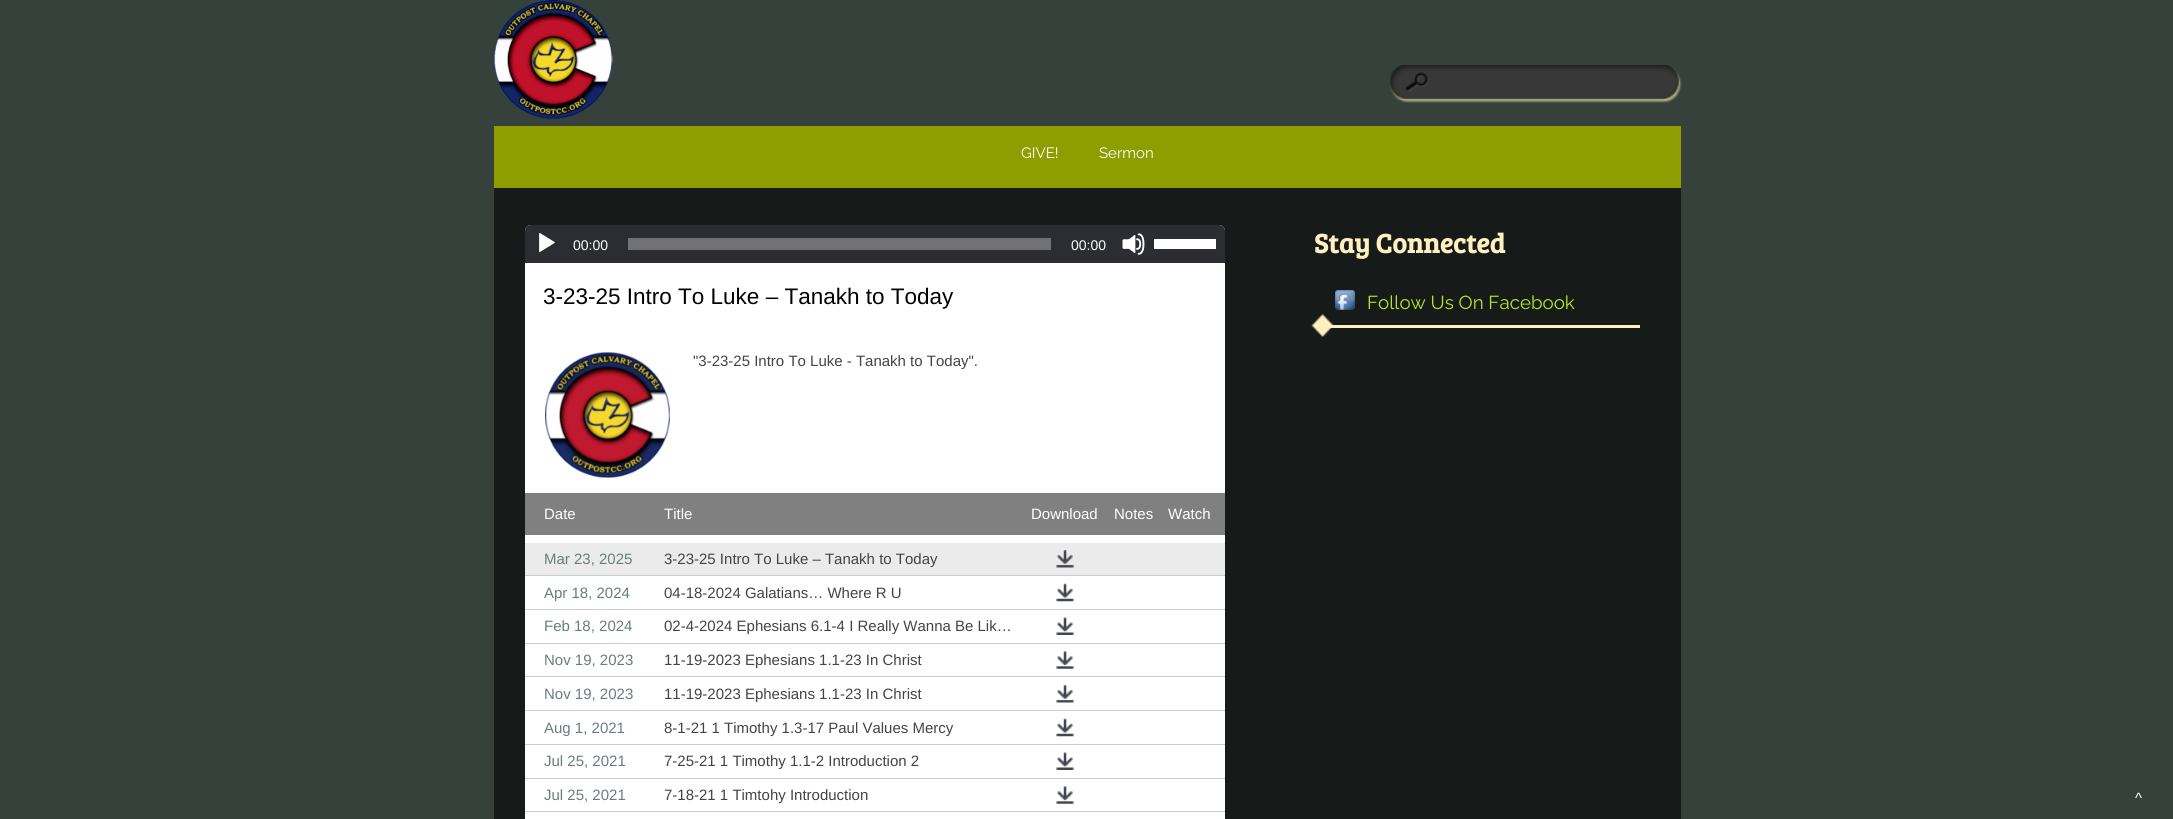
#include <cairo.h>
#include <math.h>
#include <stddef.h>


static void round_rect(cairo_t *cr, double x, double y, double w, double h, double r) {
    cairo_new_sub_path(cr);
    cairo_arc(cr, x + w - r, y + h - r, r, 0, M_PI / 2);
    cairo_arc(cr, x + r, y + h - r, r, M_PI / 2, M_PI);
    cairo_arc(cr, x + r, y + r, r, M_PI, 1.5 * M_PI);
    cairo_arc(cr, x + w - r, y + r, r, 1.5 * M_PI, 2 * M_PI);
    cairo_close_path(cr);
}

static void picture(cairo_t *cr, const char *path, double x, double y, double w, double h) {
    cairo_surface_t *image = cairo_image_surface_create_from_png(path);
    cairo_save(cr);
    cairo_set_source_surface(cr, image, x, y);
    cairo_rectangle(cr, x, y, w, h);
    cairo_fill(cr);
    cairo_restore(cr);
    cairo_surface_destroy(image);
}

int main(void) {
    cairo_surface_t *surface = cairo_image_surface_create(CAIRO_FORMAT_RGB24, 2173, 819);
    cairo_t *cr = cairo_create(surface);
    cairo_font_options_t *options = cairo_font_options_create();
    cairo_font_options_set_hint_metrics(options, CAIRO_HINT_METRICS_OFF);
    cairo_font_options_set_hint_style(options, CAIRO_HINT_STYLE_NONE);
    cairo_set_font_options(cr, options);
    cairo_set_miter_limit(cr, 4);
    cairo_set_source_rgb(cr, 0.208, 0.255, 0.227);
    cairo_paint(cr);
    picture(cr, "img1.png", 493, 0, 120, 119);
    picture(cr, "img2.png", 1390, 65, 292, 38);
    cairo_set_source_rgb(cr, 0.557, 0.62, 0);
    cairo_rectangle(cr, 494, 126, 1187, 62);
    cairo_fill(cr);
    cairo_select_font_face(cr, "Raleway", CAIRO_FONT_SLANT_NORMAL, CAIRO_FONT_WEIGHT_NORMAL);
    cairo_set_font_size(cr, 15);
    cairo_set_source_rgb(cr, 1, 1, 1);
    cairo_move_to(cr, 1021, 158);
    cairo_show_text(cr, "GIVE!");
    cairo_move_to(cr, 1099, 158);
    cairo_show_text(cr, "Sermon");
    cairo_set_source_rgb(cr, 0.086, 0.106, 0.098);
    cairo_rectangle(cr, 494, 188, 1187, 631);
    cairo_fill(cr);
    cairo_set_source_rgb(cr, 1, 1, 1);
    round_rect(cr, 525, 225, 700, 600, 6);
    cairo_fill(cr);
    cairo_set_source_rgb(cr, 0.173, 0.176, 0.2);
    cairo_new_path(cr);
    cairo_move_to(cr, 531, 225);
    cairo_line_to(cr, 1219, 225);
    cairo_curve_to(cr, 1222.5, 225, 1225, 227.5, 1225, 231);
    cairo_line_to(cr, 1225, 263);
    cairo_line_to(cr, 525, 263);
    cairo_line_to(cr, 525, 231);
    cairo_curve_to(cr, 525, 227.5, 527.5, 225, 531, 225);
    cairo_close_path(cr);
    cairo_fill(cr);
    picture(cr, "img3.png", 539, 233, 16, 19);
    cairo_select_font_face(cr, "Liberation Sans", CAIRO_FONT_SLANT_NORMAL, CAIRO_FONT_WEIGHT_NORMAL);
    cairo_set_font_size(cr, 14);
    cairo_set_source_rgb(cr, 1, 1, 1);
    cairo_move_to(cr, 573, 250);
    cairo_show_text(cr, "00:00");
    cairo_set_source_rgb(cr, 0.447, 0.447, 0.463);
    cairo_rectangle(cr, 628, 238, 423, 12);
    cairo_fill(cr);
    cairo_set_source_rgb(cr, 1, 1, 1);
    cairo_move_to(cr, 1071, 250);
    cairo_show_text(cr, "00:00");
    picture(cr, "img4.png", 1122, 233, 23, 22);
    cairo_rectangle(cr, 1154, 239, 62, 10);
    cairo_fill(cr);
    cairo_set_font_size(cr, 22.5);
    cairo_set_source_rgb(cr, 0, 0, 0);
    cairo_move_to(cr, 543, 304);
    cairo_show_text(cr, "3-23-25 Intro To Luke – Tanakh to Today");
    picture(cr, "img5.png", 545, 352, 125, 126);
    cairo_set_font_size(cr, 15);
    cairo_set_source_rgb(cr, 0.267, 0.267, 0.267);
    cairo_move_to(cr, 693, 366);
    cairo_show_text(cr, "\"3-23-25 Intro To Luke - Tanakh to Today\".");
    cairo_set_source_rgb(cr, 0.502, 0.502, 0.502);
    cairo_rectangle(cr, 525, 493, 700, 42);
    cairo_fill(cr);
    cairo_set_source_rgb(cr, 1, 1, 1);
    cairo_move_to(cr, 544, 519);
    cairo_show_text(cr, "Date");
    cairo_move_to(cr, 664, 519);
    cairo_show_text(cr, "Title");
    cairo_move_to(cr, 1031, 519);
    cairo_show_text(cr, "Download");
    cairo_move_to(cr, 1114, 519);
    cairo_show_text(cr, "Notes");
    cairo_move_to(cr, 1168, 519);
    cairo_show_text(cr, "Watch");
    cairo_set_source_rgb(cr, 0.918, 0.918, 0.918);
    cairo_rectangle(cr, 525, 543, 700, 32);
    cairo_fill(cr);
    cairo_set_source_rgb(cr, 0.408, 0.494, 0.486);
    cairo_move_to(cr, 544, 564);
    cairo_show_text(cr, "Mar 23, 2025");
    cairo_set_source_rgb(cr, 0.267, 0.267, 0.267);
    cairo_move_to(cr, 664, 564);
    cairo_show_text(cr, "3-23-25 Intro To Luke – Tanakh to Today");
    picture(cr, "img6.png", 1056, 549, 18, 19);
    cairo_set_source_rgb(cr, 0.8, 0.8, 0.8);
    cairo_rectangle(cr, 525, 575, 700, 1);
    cairo_fill(cr);
    cairo_set_source_rgb(cr, 0.408, 0.494, 0.486);
    cairo_move_to(cr, 544, 598);
    cairo_show_text(cr, "Apr 18, 2024");
    cairo_set_source_rgb(cr, 0.267, 0.267, 0.267);
    cairo_move_to(cr, 664, 598);
    cairo_show_text(cr, "04-18-2024 Galatians… Where R U");
    picture(cr, "img7.png", 1056, 583, 18, 19);
    cairo_set_source_rgb(cr, 0.8, 0.8, 0.8);
    cairo_rectangle(cr, 525, 609, 700, 1);
    cairo_fill(cr);
    cairo_set_source_rgb(cr, 0.408, 0.494, 0.486);
    cairo_move_to(cr, 544, 631);
    cairo_show_text(cr, "Feb 18, 2024");
    cairo_set_source_rgb(cr, 0.267, 0.267, 0.267);
    cairo_move_to(cr, 664, 631);
    cairo_show_text(cr, "02-4-2024 Ephesians 6.1-4 I Really Wanna Be Lik…");
    picture(cr, "img8.png", 1056, 617, 18, 18);
    cairo_set_source_rgb(cr, 0.8, 0.8, 0.8);
    cairo_rectangle(cr, 525, 643, 700, 1);
    cairo_fill(cr);
    cairo_set_source_rgb(cr, 0.408, 0.494, 0.486);
    cairo_move_to(cr, 544, 665);
    cairo_show_text(cr, "Nov 19, 2023");
    cairo_set_source_rgb(cr, 0.267, 0.267, 0.267);
    cairo_move_to(cr, 664, 665);
    cairo_show_text(cr, "11-19-2023 Ephesians 1.1-23 In Christ");
    picture(cr, "img9.png", 1056, 651, 18, 18);
    cairo_set_source_rgb(cr, 0.8, 0.8, 0.8);
    cairo_rectangle(cr, 525, 676, 700, 1);
    cairo_fill(cr);
    cairo_set_source_rgb(cr, 0.408, 0.494, 0.486);
    cairo_move_to(cr, 544, 699);
    cairo_show_text(cr, "Nov 19, 2023");
    cairo_set_source_rgb(cr, 0.267, 0.267, 0.267);
    cairo_move_to(cr, 664, 699);
    cairo_show_text(cr, "11-19-2023 Ephesians 1.1-23 In Christ");
    picture(cr, "img10.png", 1056, 684, 18, 19);
    cairo_set_source_rgb(cr, 0.8, 0.8, 0.8);
    cairo_rectangle(cr, 525, 710, 700, 1);
    cairo_fill(cr);
    cairo_set_source_rgb(cr, 0.408, 0.494, 0.486);
    cairo_move_to(cr, 544, 733);
    cairo_show_text(cr, "Aug 1, 2021");
    cairo_set_source_rgb(cr, 0.267, 0.267, 0.267);
    cairo_move_to(cr, 664, 733);
    cairo_show_text(cr, "8-1-21 1 Timothy 1.3-17 Paul Values Mercy");
    picture(cr, "img11.png", 1056, 718, 18, 19);
    cairo_set_source_rgb(cr, 0.8, 0.8, 0.8);
    cairo_rectangle(cr, 525, 744, 700, 1);
    cairo_fill(cr);
    cairo_set_source_rgb(cr, 0.408, 0.494, 0.486);
    cairo_move_to(cr, 544, 766);
    cairo_show_text(cr, "Jul 25, 2021");
    cairo_set_source_rgb(cr, 0.267, 0.267, 0.267);
    cairo_move_to(cr, 664, 766);
    cairo_show_text(cr, "7-25-21 1 Timothy 1.1-2 Introduction 2");
    picture(cr, "img8.png", 1056, 752, 18, 18);
    cairo_set_source_rgb(cr, 0.8, 0.8, 0.8);
    cairo_rectangle(cr, 525, 778, 700, 1);
    cairo_fill(cr);
    cairo_set_source_rgb(cr, 0.408, 0.494, 0.486);
    cairo_move_to(cr, 544, 800);
    cairo_show_text(cr, "Jul 25, 2021");
    cairo_set_source_rgb(cr, 0.267, 0.267, 0.267);
    cairo_move_to(cr, 664, 800);
    cairo_show_text(cr, "7-18-21 1 Timtohy Introduction");
    picture(cr, "img9.png", 1056, 786, 18, 18);
    cairo_set_source_rgb(cr, 0.8, 0.8, 0.8);
    cairo_rectangle(cr, 525, 811, 700, 1);
    cairo_fill(cr);
    cairo_select_font_face(cr, "Bree Serif", CAIRO_FONT_SLANT_NORMAL, CAIRO_FONT_WEIGHT_BOLD);
    cairo_set_font_size(cr, 27.5);
    cairo_set_source_rgb(cr, 1, 0.941, 0.753);
    cairo_move_to(cr, 1314, 253);
    cairo_show_text(cr, "Stay Connected");
    cairo_rectangle(cr, 1329, 325, 311, 3);
    cairo_fill(cr);
    picture(cr, "img12.png", 1335, 290, 20, 20);
    cairo_select_font_face(cr, "Raleway", CAIRO_FONT_SLANT_NORMAL, CAIRO_FONT_WEIGHT_NORMAL);
    cairo_set_font_size(cr, 18.75);
    cairo_set_source_rgb(cr, 0.725, 0.902, 0.145);
    cairo_move_to(cr, 1367, 309);
    cairo_show_text(cr, "Follow Us On Facebook");
    picture(cr, "img13.png", 1311, 313, 23, 25);
    cairo_select_font_face(cr, "Liberation Sans", CAIRO_FONT_SLANT_NORMAL, CAIRO_FONT_WEIGHT_NORMAL);
    cairo_set_font_size(cr, 15);
    cairo_set_source_rgb(cr, 1, 1, 1);
    cairo_move_to(cr, 2135, 803);
    cairo_show_text(cr, "^");
    cairo_surface_write_to_png(surface, "page.png");
    cairo_font_options_destroy(options);
    cairo_destroy(cr);
    cairo_surface_destroy(surface);
    return 0;
}
